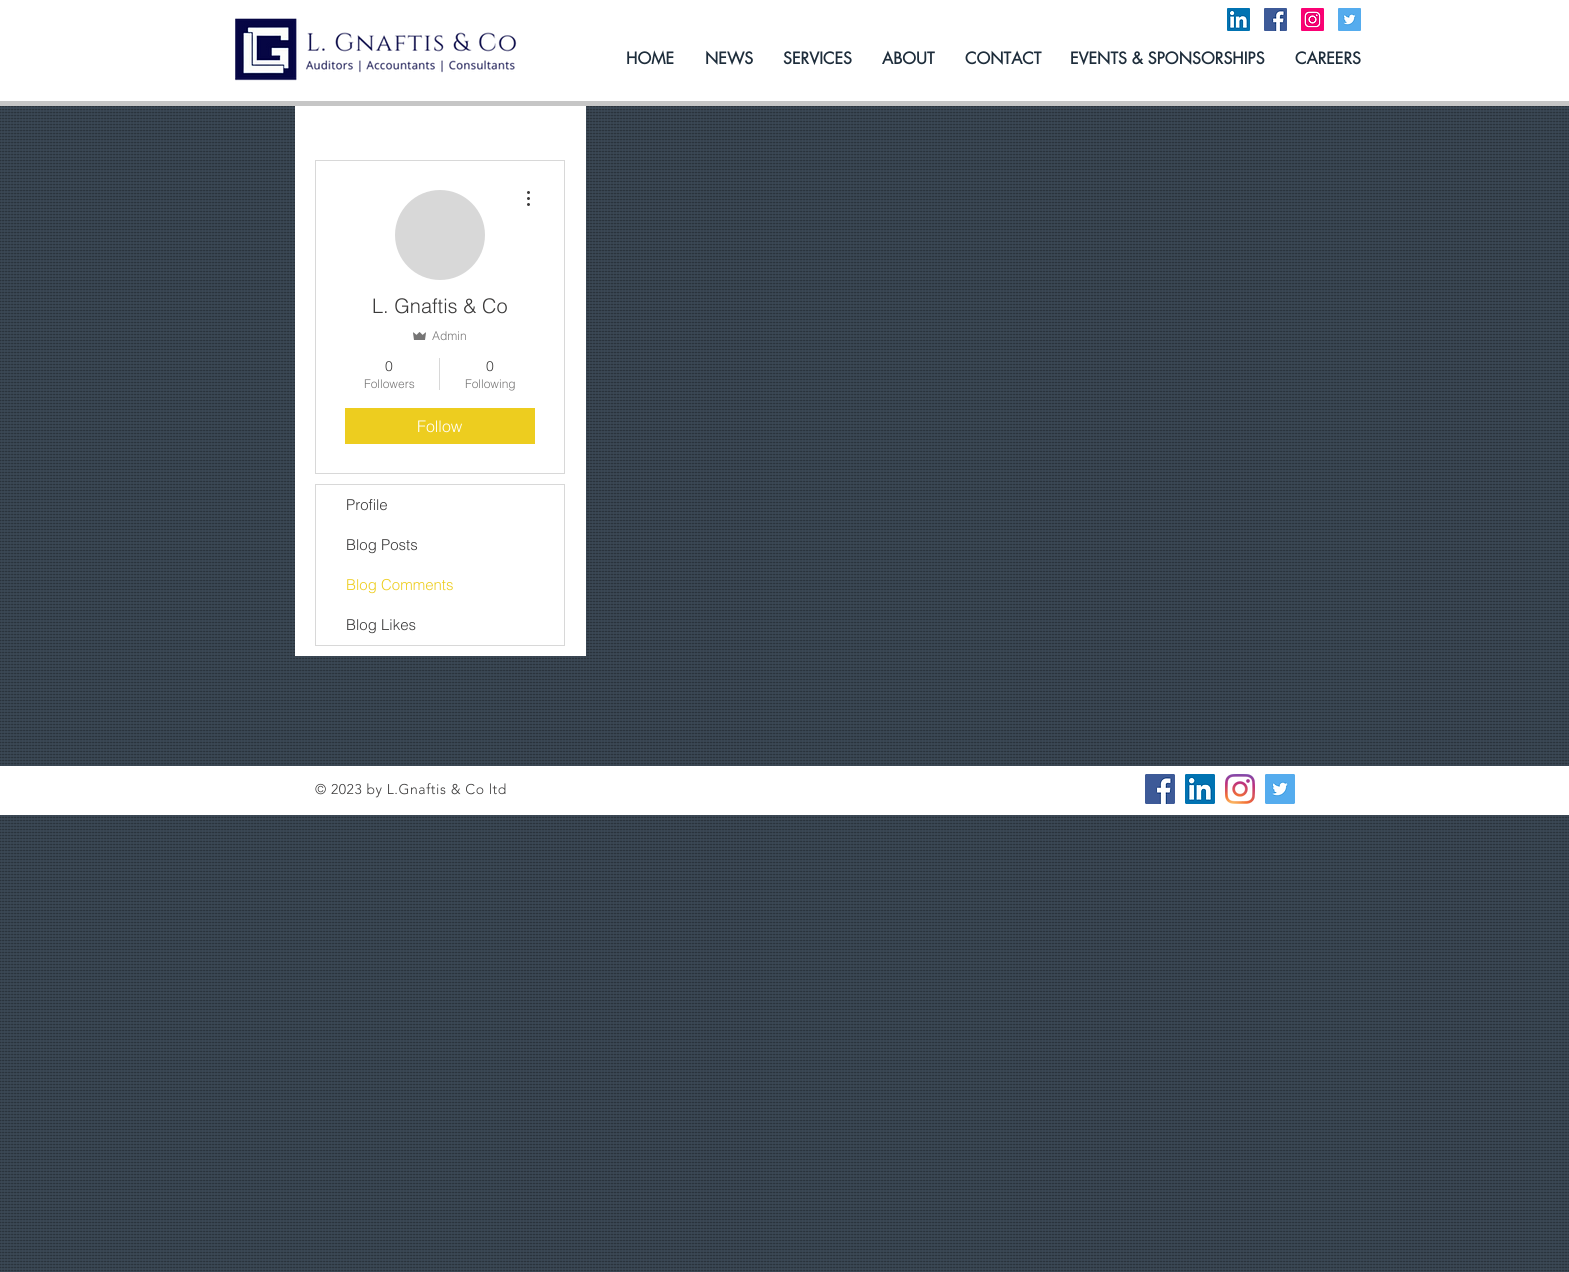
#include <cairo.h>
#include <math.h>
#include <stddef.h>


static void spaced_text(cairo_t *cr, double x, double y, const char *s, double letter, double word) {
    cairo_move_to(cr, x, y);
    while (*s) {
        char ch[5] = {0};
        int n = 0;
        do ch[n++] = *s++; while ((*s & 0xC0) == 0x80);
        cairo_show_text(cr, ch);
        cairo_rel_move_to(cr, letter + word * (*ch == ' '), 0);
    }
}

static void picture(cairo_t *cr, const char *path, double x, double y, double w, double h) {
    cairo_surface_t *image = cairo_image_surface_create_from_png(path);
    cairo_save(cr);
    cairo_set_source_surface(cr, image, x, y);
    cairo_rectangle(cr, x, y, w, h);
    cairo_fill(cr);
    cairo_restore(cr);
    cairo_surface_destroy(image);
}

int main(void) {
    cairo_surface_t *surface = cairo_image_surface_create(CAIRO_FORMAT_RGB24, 1569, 1272);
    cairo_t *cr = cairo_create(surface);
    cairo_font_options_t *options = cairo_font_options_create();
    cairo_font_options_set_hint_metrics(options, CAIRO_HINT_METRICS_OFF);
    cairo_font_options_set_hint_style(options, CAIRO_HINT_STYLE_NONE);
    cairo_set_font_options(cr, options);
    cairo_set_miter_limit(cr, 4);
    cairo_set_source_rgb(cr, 0.231, 0.282, 0.333);
    cairo_paint(cr);
    cairo_set_source_rgb(cr, 1, 1, 1);
    cairo_rectangle(cr, 0, 0, 1569, 101);
    cairo_fill(cr);
    cairo_set_source_rgb(cr, 0.776, 0.776, 0.776);
    cairo_rectangle(cr, 0, 101, 1569, 5);
    cairo_fill(cr);
    picture(cr, "img1.png", 235, 18, 282, 63);
    picture(cr, "img2.png", 1227, 8, 23, 23);
    picture(cr, "img3.png", 1264, 8, 23, 23);
    picture(cr, "img4.png", 1301, 8, 23, 23);
    picture(cr, "img5.png", 1338, 8, 23, 23);
    cairo_select_font_face(cr, "futura", CAIRO_FONT_SLANT_NORMAL, CAIRO_FONT_WEIGHT_BOLD);
    cairo_set_font_size(cr, 16);
    cairo_set_source_rgb(cr, 0.118, 0.176, 0.231);
    cairo_move_to(cr, 626, 64);
    cairo_show_text(cr, "HOME");
    cairo_move_to(cr, 705, 64);
    cairo_show_text(cr, "NEWS");
    cairo_move_to(cr, 783, 64);
    cairo_show_text(cr, "SERVICES");
    cairo_move_to(cr, 882, 64);
    cairo_show_text(cr, "ABOUT");
    cairo_move_to(cr, 965, 64);
    cairo_show_text(cr, "CONTACT");
    cairo_move_to(cr, 1070, 64);
    cairo_show_text(cr, "EVENTS & SPONSORSHIPS");
    cairo_move_to(cr, 1295, 64);
    cairo_show_text(cr, "CAREERS");
    picture(cr, "img12.png", 0, 106, 1569, 1166);
    cairo_set_source_rgb(cr, 1, 1, 1);
    cairo_rectangle(cr, 295, 106, 291, 550);
    cairo_fill(cr);
    cairo_rectangle(cr, 315.5, 160.5, 249, 313);
    cairo_set_source_rgb(cr, 0.847, 0.847, 0.847);
    cairo_set_line_width(cr, 1);
    cairo_stroke(cr);
    cairo_arc(cr, 440, 235, 45, 0, 2 * M_PI);
    cairo_fill(cr);
    picture(cr, "img6.png", 527, 191, 3, 15);
    cairo_select_font_face(cr, "helvetica Light", CAIRO_FONT_SLANT_NORMAL, CAIRO_FONT_WEIGHT_NORMAL);
    cairo_set_font_size(cr, 20);
    cairo_set_source_rgb(cr, 0.231, 0.227, 0.227);
    cairo_move_to(cr, 372, 313);
    cairo_show_text(cr, "L. Gnaftis & Co");
    picture(cr, "img7.png", 413, 332, 13, 8);
    cairo_set_font_size(cr, 12);
    cairo_set_source_rgb(cr, 0.463, 0.459, 0.459);
    cairo_move_to(cr, 432, 340);
    cairo_show_text(cr, "Admin");
    cairo_set_font_size(cr, 14);
    cairo_set_source_rgb(cr, 0.231, 0.227, 0.227);
    cairo_move_to(cr, 385, 371);
    cairo_show_text(cr, "0");
    cairo_set_font_size(cr, 12);
    cairo_set_source_rgb(cr, 0.463, 0.459, 0.459);
    cairo_move_to(cr, 364, 388);
    cairo_show_text(cr, "Followers");
    cairo_set_source_rgb(cr, 0.847, 0.847, 0.847);
    cairo_rectangle(cr, 439, 358, 1, 32);
    cairo_fill(cr);
    cairo_set_font_size(cr, 14);
    cairo_set_source_rgb(cr, 0.231, 0.227, 0.227);
    cairo_move_to(cr, 486, 371);
    cairo_show_text(cr, "0");
    cairo_set_font_size(cr, 12);
    cairo_set_source_rgb(cr, 0.463, 0.459, 0.459);
    cairo_move_to(cr, 465, 388);
    cairo_show_text(cr, "Following");
    cairo_set_source_rgb(cr, 0.929, 0.804, 0.122);
    cairo_rectangle(cr, 345, 408, 190, 36);
    cairo_fill(cr);
    cairo_set_font_size(cr, 16);
    cairo_set_source_rgb(cr, 1, 1, 1);
    cairo_move_to(cr, 417, 432);
    cairo_show_text(cr, "Follow");
    cairo_rectangle(cr, 315.5, 484.5, 249, 161);
    cairo_set_source_rgb(cr, 0.847, 0.847, 0.847);
    cairo_stroke(cr);
    cairo_set_font_size(cr, 15);
    cairo_set_source_rgb(cr, 0.231, 0.227, 0.227);
    cairo_move_to(cr, 346, 510);
    cairo_show_text(cr, "Profile");
    cairo_move_to(cr, 346, 550);
    cairo_show_text(cr, "Blog Posts");
    cairo_set_source_rgb(cr, 0.929, 0.804, 0.122);
    cairo_move_to(cr, 346, 590);
    cairo_show_text(cr, "Blog Comments");
    cairo_set_source_rgb(cr, 0.231, 0.227, 0.227);
    cairo_move_to(cr, 346, 630);
    cairo_show_text(cr, "Blog Likes");
    cairo_set_source_rgb(cr, 1, 1, 1);
    cairo_rectangle(cr, 0, 766, 1569, 49);
    cairo_fill(cr);
    cairo_select_font_face(cr, "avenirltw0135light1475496 Light", CAIRO_FONT_SLANT_NORMAL, CAIRO_FONT_WEIGHT_NORMAL);
    cairo_set_font_size(cr, 14);
    cairo_set_source_rgb(cr, 0.231, 0.227, 0.227);
    spaced_text(cr, 315, 794, "© 2023 by L.Gnaftis & Co ltd", 0.55, 0);
    picture(cr, "img8.png", 1145, 774, 30, 30);
    picture(cr, "img9.png", 1185, 774, 30, 30);
    picture(cr, "img10.png", 1225, 774, 30, 30);
    picture(cr, "img11.png", 1265, 774, 30, 30);
    cairo_surface_write_to_png(surface, "page.png");
    cairo_font_options_destroy(options);
    cairo_destroy(cr);
    cairo_surface_destroy(surface);
    return 0;
}
